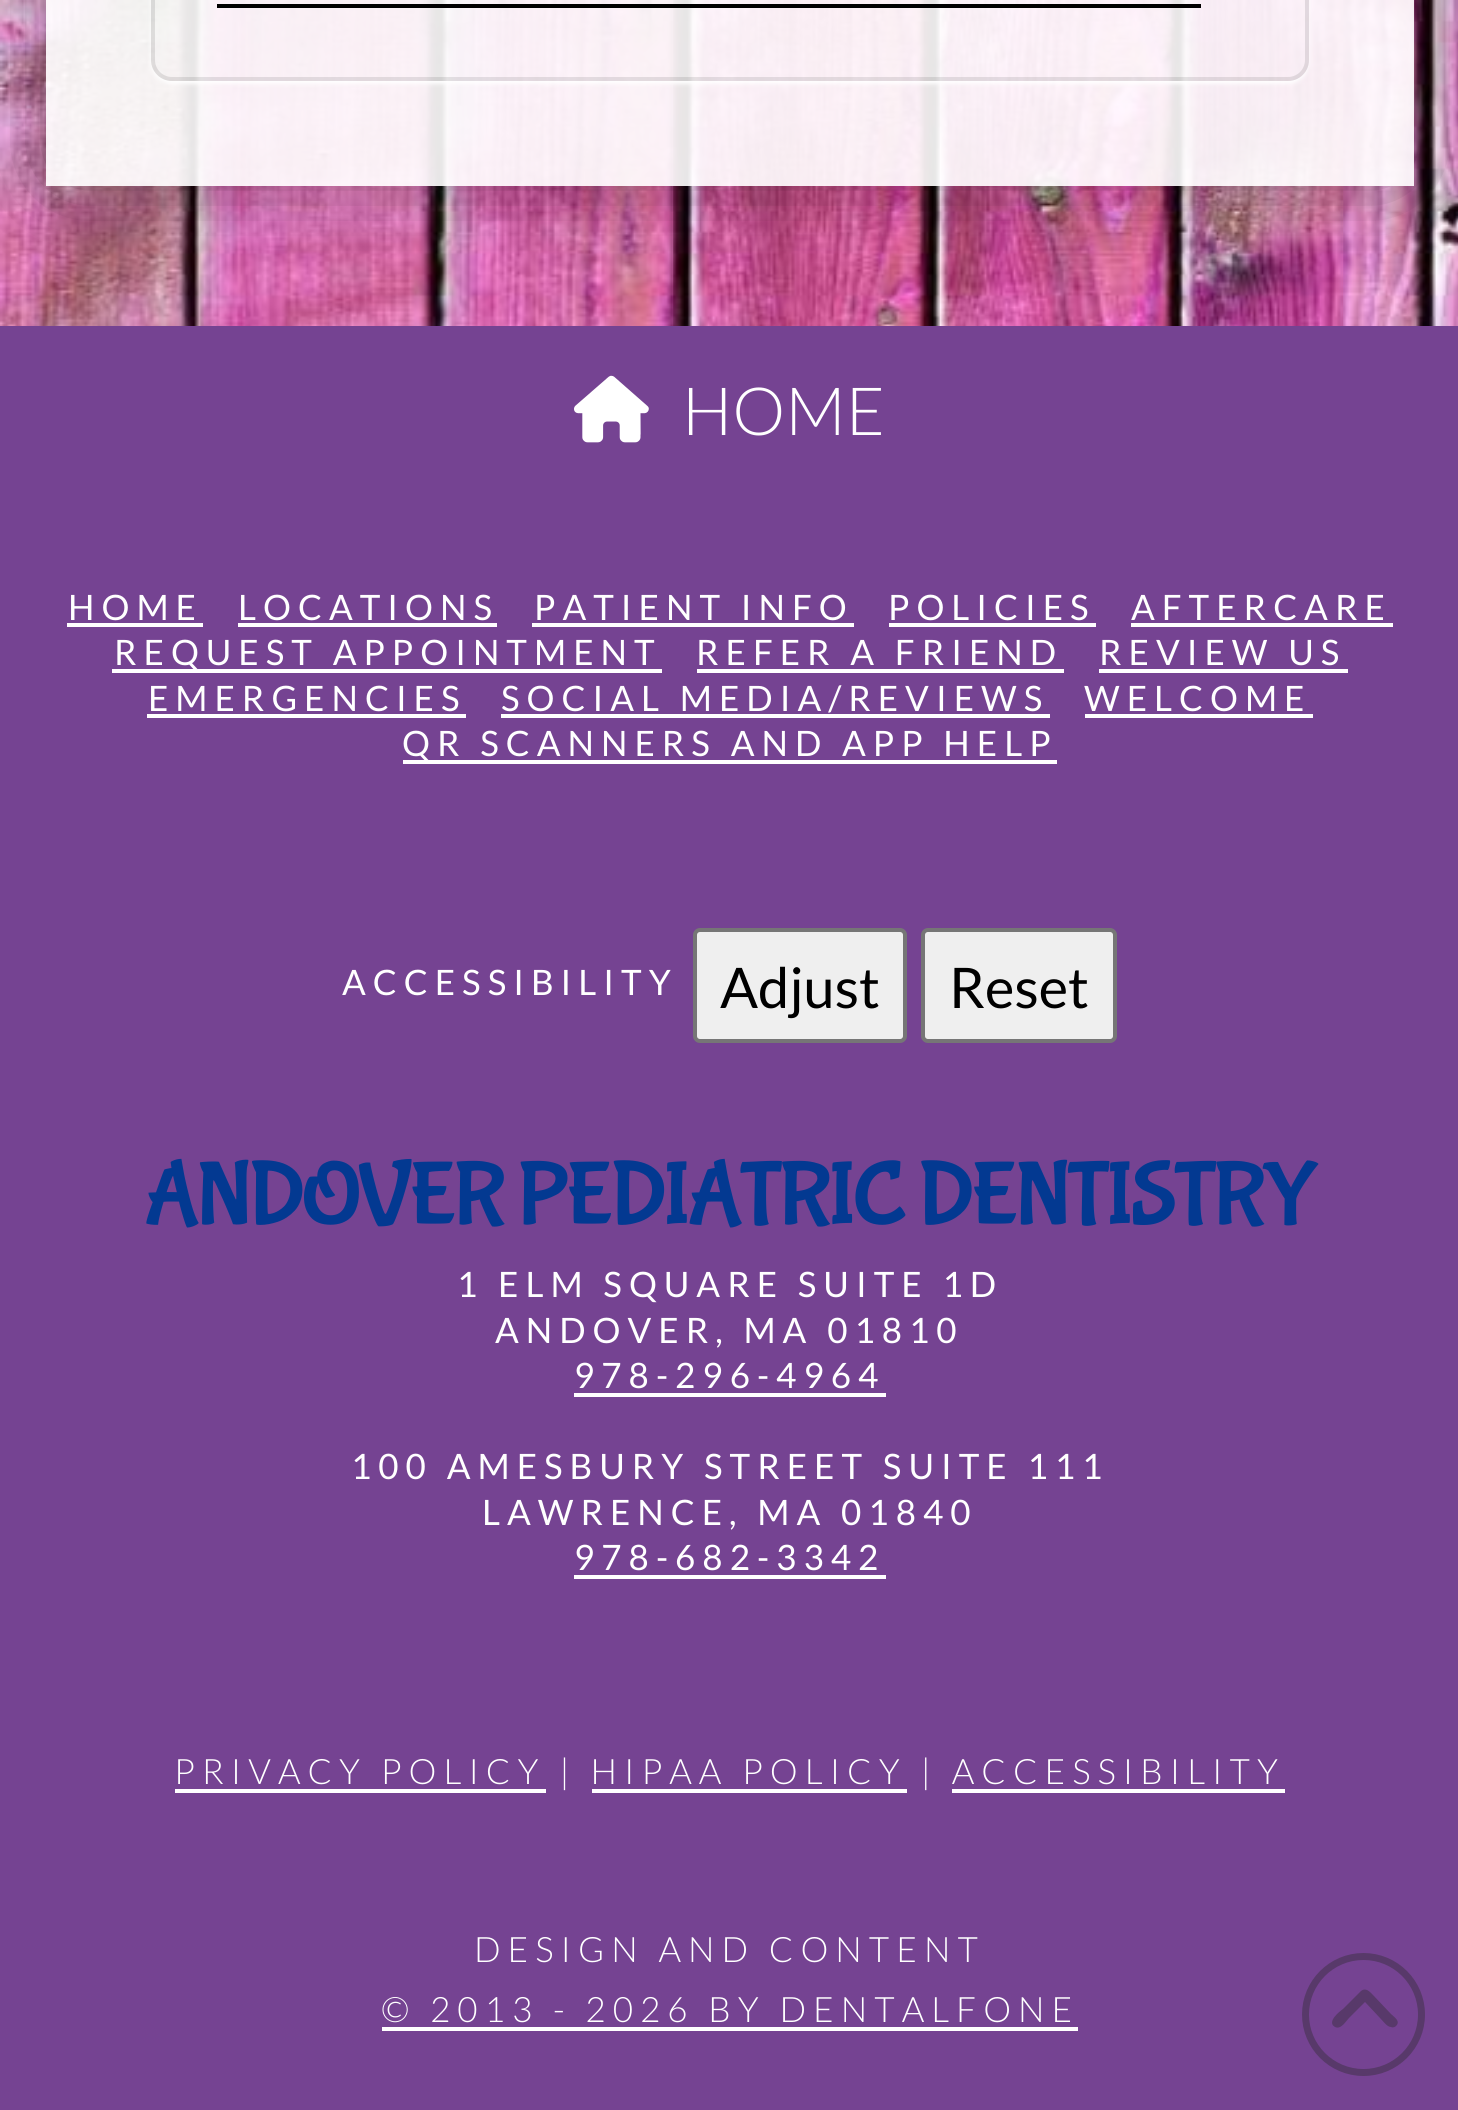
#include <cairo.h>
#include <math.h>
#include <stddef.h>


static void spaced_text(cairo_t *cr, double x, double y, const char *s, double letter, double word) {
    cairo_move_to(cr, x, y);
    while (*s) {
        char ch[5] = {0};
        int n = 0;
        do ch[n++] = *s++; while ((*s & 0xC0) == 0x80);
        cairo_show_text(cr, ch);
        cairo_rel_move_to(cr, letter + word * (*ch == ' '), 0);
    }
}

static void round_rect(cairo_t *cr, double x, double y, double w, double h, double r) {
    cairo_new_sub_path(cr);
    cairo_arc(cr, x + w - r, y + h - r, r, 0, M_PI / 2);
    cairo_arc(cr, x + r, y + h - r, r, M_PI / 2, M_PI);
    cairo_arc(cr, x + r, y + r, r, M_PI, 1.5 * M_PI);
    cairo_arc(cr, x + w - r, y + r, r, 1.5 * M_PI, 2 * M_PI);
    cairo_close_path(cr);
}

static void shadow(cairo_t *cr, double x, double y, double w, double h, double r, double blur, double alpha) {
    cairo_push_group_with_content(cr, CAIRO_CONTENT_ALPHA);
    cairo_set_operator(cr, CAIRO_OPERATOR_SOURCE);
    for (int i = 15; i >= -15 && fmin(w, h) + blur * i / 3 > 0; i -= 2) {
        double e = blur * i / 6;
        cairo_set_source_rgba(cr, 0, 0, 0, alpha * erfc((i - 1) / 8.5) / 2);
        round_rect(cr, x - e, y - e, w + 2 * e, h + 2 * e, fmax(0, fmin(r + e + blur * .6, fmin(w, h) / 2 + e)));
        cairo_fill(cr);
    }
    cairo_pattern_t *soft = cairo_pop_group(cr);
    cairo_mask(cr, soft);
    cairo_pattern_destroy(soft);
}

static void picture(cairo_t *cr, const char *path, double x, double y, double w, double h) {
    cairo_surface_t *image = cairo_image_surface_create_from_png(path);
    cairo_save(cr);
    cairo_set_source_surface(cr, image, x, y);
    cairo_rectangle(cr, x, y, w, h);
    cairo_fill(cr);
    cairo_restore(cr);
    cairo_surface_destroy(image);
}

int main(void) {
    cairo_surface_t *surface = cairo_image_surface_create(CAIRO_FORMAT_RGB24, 1458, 2110);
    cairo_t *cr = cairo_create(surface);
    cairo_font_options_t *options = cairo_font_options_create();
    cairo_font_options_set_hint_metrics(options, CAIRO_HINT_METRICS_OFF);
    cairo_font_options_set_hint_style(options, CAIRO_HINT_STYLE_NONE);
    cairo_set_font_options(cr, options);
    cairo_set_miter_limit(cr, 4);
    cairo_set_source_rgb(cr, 1, 1, 1);
    cairo_paint(cr);
    picture(cr, "img1.png", 0, 0, 1458, 326);
    cairo_save(cr);
    cairo_set_fill_rule(cr, CAIRO_FILL_RULE_EVEN_ODD);
    cairo_new_path(cr);
    cairo_move_to(cr, 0, 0);
    cairo_line_to(cr, 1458, 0);
    cairo_line_to(cr, 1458, 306);
    cairo_line_to(cr, 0, 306);
    cairo_close_path(cr);
    cairo_move_to(cr, 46, -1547);
    cairo_line_to(cr, 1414, -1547);
    cairo_line_to(cr, 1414, 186);
    cairo_line_to(cr, 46, 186);
    cairo_close_path(cr);
    cairo_clip(cr);
    cairo_set_source_rgb(cr, 0, 0, 0);
    shadow(cr, 63, -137, 1334, 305, 0, 45.5, 0.5);
    cairo_restore(cr);
    cairo_set_source_rgba(cr, 1, 1, 1, 0.9);
    cairo_rectangle(cr, 46, 0, 1368, 186);
    cairo_fill(cr);
    cairo_save(cr);
    cairo_set_fill_rule(cr, CAIRO_FILL_RULE_EVEN_ODD);
    cairo_new_path(cr);
    cairo_move_to(cr, 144, 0);
    cairo_line_to(cr, 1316, 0);
    cairo_line_to(cr, 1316, 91);
    cairo_line_to(cr, 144, 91);
    cairo_close_path(cr);
    cairo_move_to(cr, 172, -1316);
    cairo_line_to(cr, 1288, -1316);
    cairo_curve_to(cr, 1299.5, -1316, 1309, -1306.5, 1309, -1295);
    cairo_line_to(cr, 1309, 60);
    cairo_curve_to(cr, 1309, 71.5, 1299.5, 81, 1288, 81);
    cairo_line_to(cr, 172, 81);
    cairo_curve_to(cr, 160.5, 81, 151, 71.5, 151, 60);
    cairo_line_to(cr, 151, -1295);
    cairo_curve_to(cr, 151, -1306.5, 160.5, -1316, 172, -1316);
    cairo_close_path(cr);
    cairo_clip(cr);
    cairo_set_source_rgb(cr, 1, 1, 1);
    shadow(cr, 151, -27, 1158, 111, 21, 2, 0.95);
    cairo_restore(cr);
    round_rect(cr, 153, -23, 1154, 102, 19);
    cairo_set_source_rgba(cr, 0, 0, 0, 0.1);
    cairo_set_line_width(cr, 4);
    cairo_stroke(cr);
    cairo_save(cr);
    round_rect(cr, 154, -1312, 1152, 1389, 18);
    cairo_clip(cr);
    cairo_set_fill_rule(cr, CAIRO_FILL_RULE_EVEN_ODD);
    cairo_new_path(cr);
    cairo_move_to(cr, 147, 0);
    cairo_line_to(cr, 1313, 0);
    cairo_line_to(cr, 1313, 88);
    cairo_line_to(cr, 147, 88);
    cairo_close_path(cr);
    cairo_move_to(cr, 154, -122);
    cairo_line_to(cr, 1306, -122);
    cairo_line_to(cr, 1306, 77);
    cairo_line_to(cr, 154, 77);
    cairo_close_path(cr);
    cairo_clip(cr);
    cairo_set_source_rgb(cr, 1, 1, 1);
    shadow(cr, 154, -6, 1152, 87, 0, 2, 0.95);
    cairo_restore(cr);
    cairo_set_source_rgb(cr, 0, 0, 0);
    cairo_rectangle(cr, 217, 4, 984, 4);
    cairo_fill(cr);
    cairo_set_source_rgb(cr, 0.459, 0.263, 0.573);
    cairo_rectangle(cr, 0, 326, 1458, 1784);
    cairo_fill(cr);
    picture(cr, "img2.png", 574, 375, 75, 68);
    cairo_select_font_face(cr, "Lato Light", CAIRO_FONT_SLANT_NORMAL, CAIRO_FONT_WEIGHT_NORMAL);
    cairo_set_font_size(cr, 66.5);
    cairo_set_source_rgb(cr, 1, 1, 1);
    cairo_move_to(cr, 682, 435);
    cairo_show_text(cr, "HOME");
    cairo_select_font_face(cr, "Lato", CAIRO_FONT_SLANT_NORMAL, CAIRO_FONT_WEIGHT_NORMAL);
    cairo_set_font_size(cr, 35);
    spaced_text(cr, 68, 620, "HOME", 7, 0);
    cairo_rectangle(cr, 67, 623, 136, 4);
    cairo_fill(cr);
    spaced_text(cr, 238, 620, "LOCATIONS", 7, 0);
    cairo_rectangle(cr, 238, 623, 259, 4);
    cairo_fill(cr);
    spaced_text(cr, 534, 620, "PATIENT INFO", 7, 0);
    cairo_rectangle(cr, 532, 623, 322, 4);
    cairo_fill(cr);
    spaced_text(cr, 888, 620, "POLICIES", 7, 0);
    cairo_rectangle(cr, 889, 623, 207, 4);
    cairo_fill(cr);
    spaced_text(cr, 1131, 620, "AFTERCARE", 7, 0);
    cairo_rectangle(cr, 1131, 623, 262, 4);
    cairo_fill(cr);
    cairo_rectangle(cr, 112, 669, 550, 4);
    cairo_fill(cr);
    spaced_text(cr, 114, 665, "REQUEST APPOINTMENT", 7, 0);
    spaced_text(cr, 696, 665, "REFER A FRIEND", 7, 0);
    cairo_rectangle(cr, 697, 669, 367, 4);
    cairo_fill(cr);
    spaced_text(cr, 1099, 665, "REVIEW US", 7, 0);
    cairo_rectangle(cr, 1099, 669, 249, 4);
    cairo_fill(cr);
    spaced_text(cr, 148, 711, "EMERGENCIES", 7, 0);
    cairo_rectangle(cr, 147, 714, 319, 4);
    cairo_fill(cr);
    spaced_text(cr, 501, 711, "SOCIAL MEDIA/REVIEWS", 7, 0);
    cairo_rectangle(cr, 501, 714, 549, 4);
    cairo_fill(cr);
    spaced_text(cr, 1084, 711, "WELCOME", 7, 0);
    cairo_rectangle(cr, 1085, 714, 228, 4);
    cairo_fill(cr);
    cairo_rectangle(cr, 403, 760, 654, 4);
    cairo_fill(cr);
    spaced_text(cr, 402, 756, "QR SCANNERS AND APP HELP", 7, 0);
    spaced_text(cr, 342, 995, "ACCESSIBILITY", 7, 0);
    cairo_set_source_rgb(cr, 0.937, 0.937, 0.937);
    round_rect(cr, 695, 930, 210, 111, 5);
    cairo_fill_preserve(cr);
    cairo_set_source_rgb(cr, 0.463, 0.463, 0.463);
    cairo_stroke(cr);
    cairo_set_font_size(cr, 56);
    cairo_set_source_rgb(cr, 0, 0, 0);
    cairo_move_to(cr, 720, 1008);
    cairo_show_text(cr, "Adjust");
    cairo_set_source_rgb(cr, 0.937, 0.937, 0.937);
    round_rect(cr, 923, 930, 192, 111, 5);
    cairo_fill_preserve(cr);
    cairo_set_source_rgb(cr, 0.463, 0.463, 0.463);
    cairo_stroke(cr);
    cairo_set_source_rgb(cr, 0, 0, 0);
    cairo_move_to(cr, 949, 1008);
    cairo_show_text(cr, "Reset");
    cairo_select_font_face(cr, "Bubblegum Sans", CAIRO_FONT_SLANT_NORMAL, CAIRO_FONT_WEIGHT_NORMAL);
    cairo_set_font_size(cr, 91);
    cairo_set_source_rgb(cr, 0.012, 0.224, 0.569);
    spaced_text(cr, 144, 1222, "ANDOVER PEDIATRIC DENTISTRY", -3.8, 0);
    cairo_select_font_face(cr, "Lato", CAIRO_FONT_SLANT_NORMAL, CAIRO_FONT_WEIGHT_NORMAL);
    cairo_set_font_size(cr, 35);
    cairo_set_source_rgb(cr, 1, 1, 1);
    spaced_text(cr, 457, 1297, "1 ELM SQUARE SUITE 1D", 7, 0);
    spaced_text(cr, 495, 1343, "ANDOVER, MA 01810", 7, 0);
    spaced_text(cr, 574, 1388, "978-296-4964", 7, 0);
    cairo_rectangle(cr, 574, 1393, 312, 4);
    cairo_fill(cr);
    spaced_text(cr, 351, 1479, "100 AMESBURY STREET SUITE 111", 7, 0);
    spaced_text(cr, 482, 1525, "LAWRENCE, MA 01840", 7, 0);
    spaced_text(cr, 574, 1570, "978-682-3342", 7, 0);
    cairo_rectangle(cr, 574, 1575, 312, 4);
    cairo_fill(cr);
    cairo_rectangle(cr, 175, 1789, 371, 4);
    cairo_fill(cr);
    cairo_select_font_face(cr, "Lato Light", CAIRO_FONT_SLANT_NORMAL, CAIRO_FONT_WEIGHT_NORMAL);
    spaced_text(cr, 174, 1784, "PRIVACY POLICY | HIPAA POLICY | ACCESSIBILITY", 7, 0);
    cairo_rectangle(cr, 592, 1789, 315, 4);
    cairo_fill(cr);
    cairo_rectangle(cr, 952, 1789, 333, 4);
    cairo_fill(cr);
    spaced_text(cr, 474, 1962, "DESIGN AND CONTENT", 7, 0);
    spaced_text(cr, 381, 2022, "© 2013 - 2026 BY DENTALFONE", 7, 0);
    cairo_rectangle(cr, 382, 2027, 696, 4);
    cairo_fill(cr);
    cairo_arc(cr, 1363.5, 2014.5, 58, 0, 2 * M_PI);
    cairo_set_source_rgb(cr, 0.345, 0.224, 0.416);
    cairo_set_line_width(cr, 7);
    cairo_stroke(cr);
    cairo_new_path(cr);
    cairo_move_to(cr, 1361, 1991);
    cairo_curve_to(cr, 1366, 1987, 1370, 1992, 1373, 1995);
    cairo_line_to(cr, 1391, 2014);
    cairo_curve_to(cr, 1394, 2017, 1401, 2021, 1396, 2026);
    cairo_curve_to(cr, 1395, 2027, 1393, 2028, 1391, 2027);
    cairo_curve_to(cr, 1387, 2027, 1383, 2021, 1380, 2018);
    cairo_line_to(cr, 1365, 2002);
    cairo_line_to(cr, 1349, 2018);
    cairo_curve_to(cr, 1346, 2021, 1341, 2030, 1335, 2027);
    cairo_curve_to(cr, 1326, 2022, 1340, 2011, 1343, 2009);
    cairo_close_path(cr);
    cairo_fill(cr);
    cairo_surface_write_to_png(surface, "page.png");
    cairo_font_options_destroy(options);
    cairo_destroy(cr);
    cairo_surface_destroy(surface);
    return 0;
}
